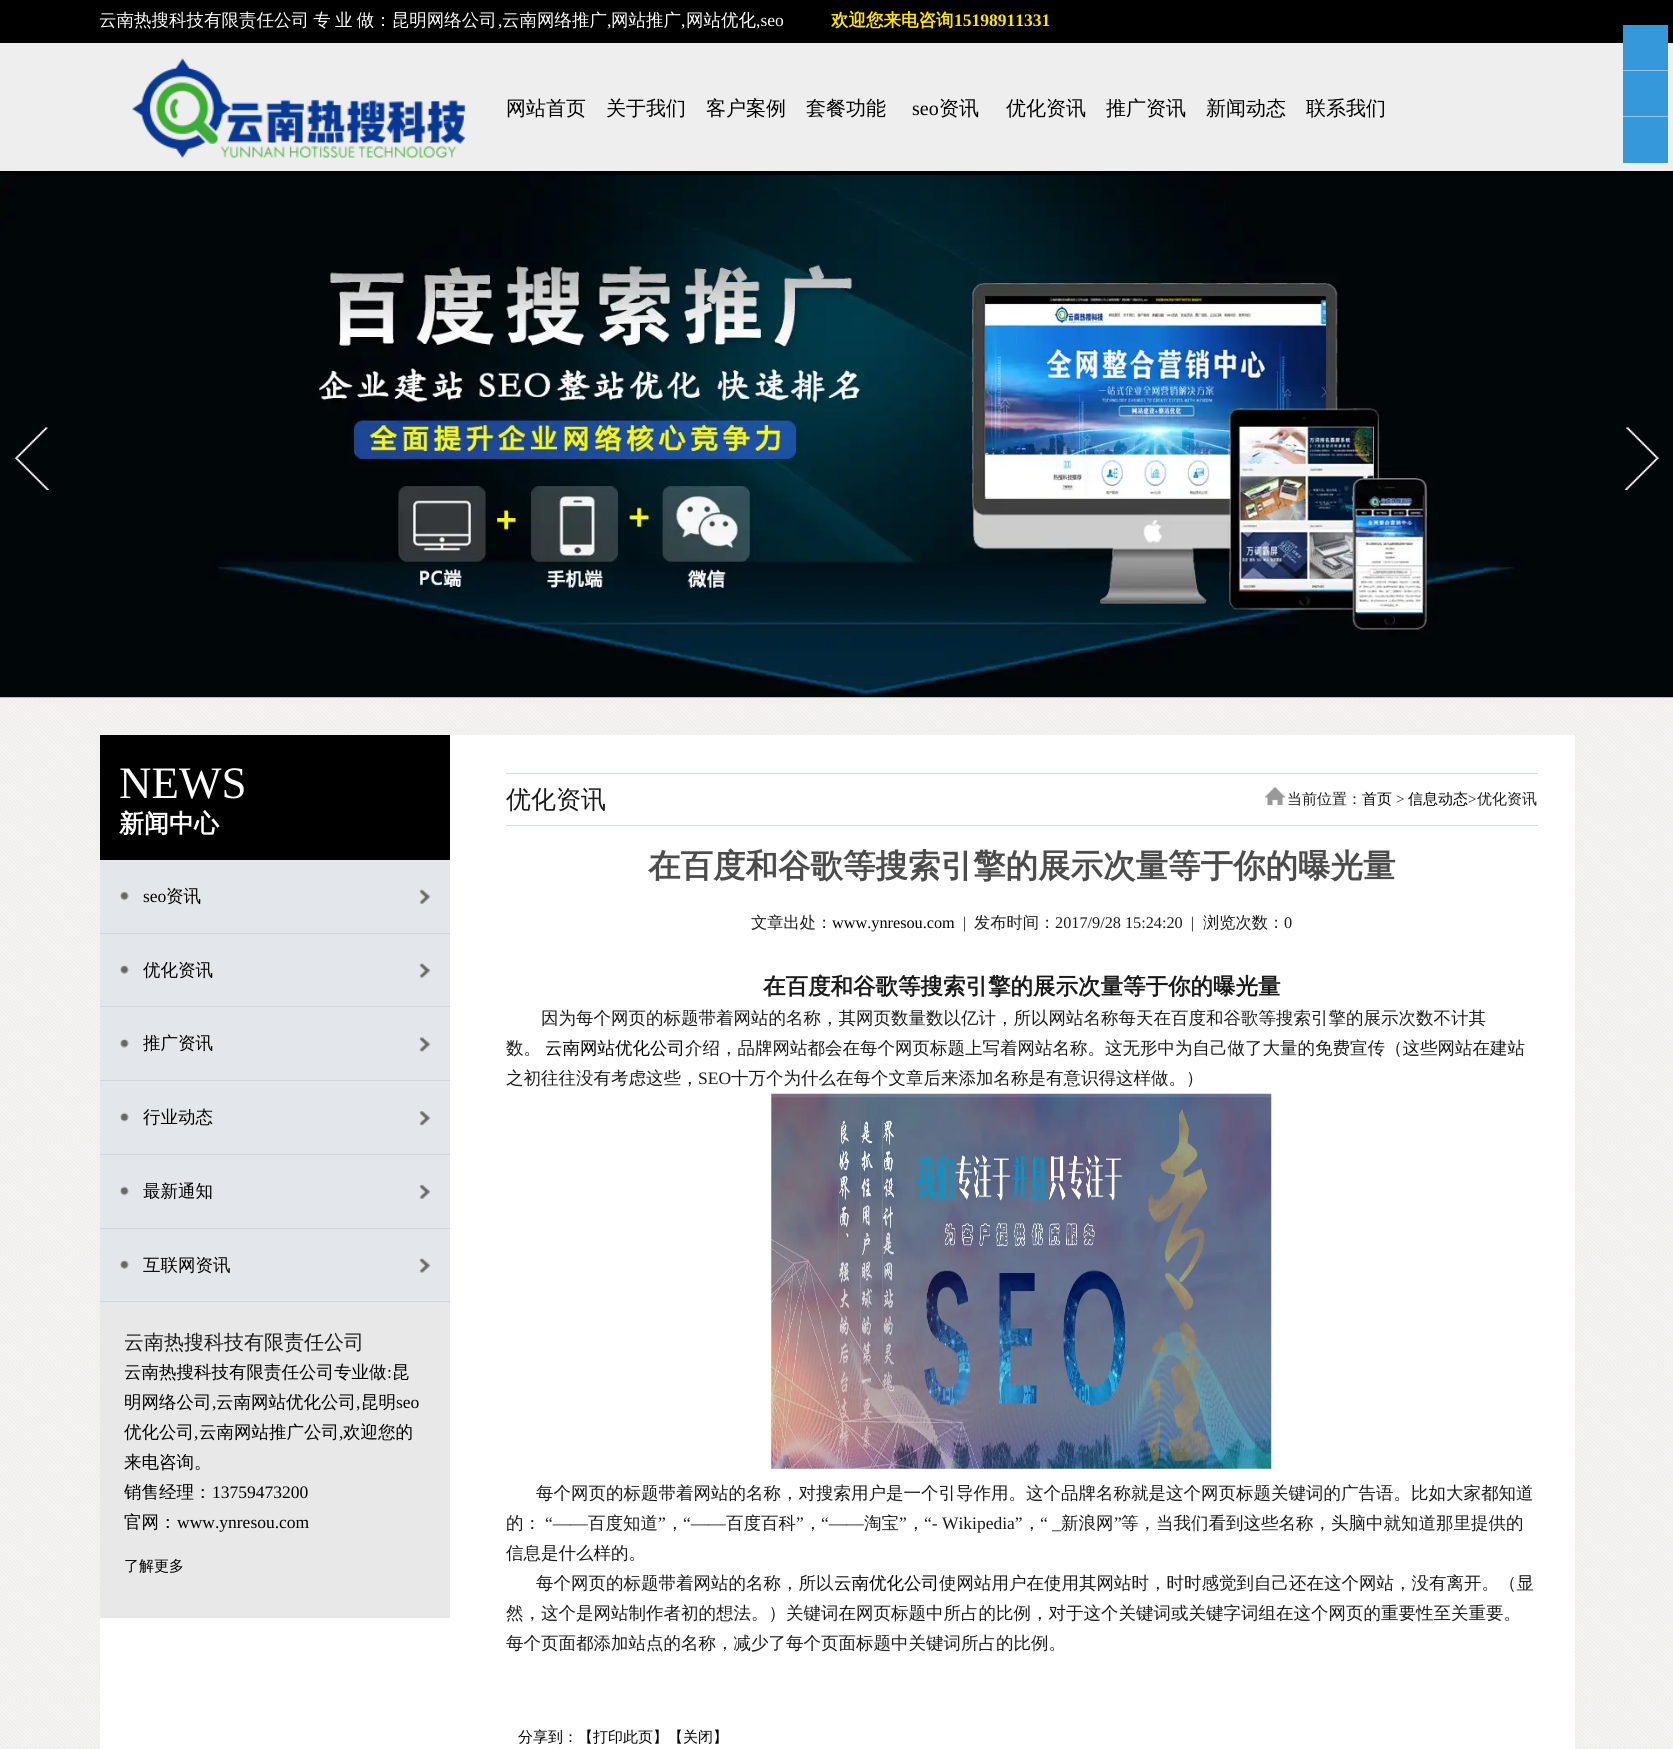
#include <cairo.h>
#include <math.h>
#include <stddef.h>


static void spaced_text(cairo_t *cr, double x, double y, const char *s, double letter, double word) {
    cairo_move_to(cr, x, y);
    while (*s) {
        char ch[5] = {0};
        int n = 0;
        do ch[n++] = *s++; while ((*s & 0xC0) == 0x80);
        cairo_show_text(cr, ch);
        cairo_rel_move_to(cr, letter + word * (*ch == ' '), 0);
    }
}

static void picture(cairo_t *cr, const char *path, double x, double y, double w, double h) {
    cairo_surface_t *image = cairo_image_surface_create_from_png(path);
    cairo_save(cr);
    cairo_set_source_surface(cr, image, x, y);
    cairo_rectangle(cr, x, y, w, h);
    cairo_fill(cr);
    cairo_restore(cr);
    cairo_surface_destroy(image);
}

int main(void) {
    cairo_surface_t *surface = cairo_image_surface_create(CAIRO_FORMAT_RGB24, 1673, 1749);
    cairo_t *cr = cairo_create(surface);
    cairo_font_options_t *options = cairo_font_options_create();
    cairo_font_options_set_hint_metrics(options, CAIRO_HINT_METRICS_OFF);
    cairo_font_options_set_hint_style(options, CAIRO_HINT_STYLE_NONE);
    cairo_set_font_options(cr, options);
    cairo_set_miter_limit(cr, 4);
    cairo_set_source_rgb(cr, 1, 1, 1);
    cairo_paint(cr);
    cairo_set_source_rgb(cr, 0, 0, 0);
    cairo_rectangle(cr, 0, 0, 1673, 43);
    cairo_fill(cr);
    cairo_select_font_face(cr, "WenQuanYi Zen Hei Medium", CAIRO_FONT_SLANT_NORMAL, CAIRO_FONT_WEIGHT_NORMAL);
    cairo_set_font_size(cr, 17.5);
    cairo_set_source_rgb(cr, 1, 1, 1);
    spaced_text(cr, 99, 26, "云南热搜科技有限责任公司 专 业 做：昆明网络公司", 0, -1);
    cairo_select_font_face(cr, "Liberation Serif", CAIRO_FONT_SLANT_NORMAL, CAIRO_FONT_WEIGHT_NORMAL);
    cairo_move_to(cr, 498, 26);
    cairo_show_text(cr, ",");
    cairo_select_font_face(cr, "WenQuanYi Zen Hei Medium", CAIRO_FONT_SLANT_NORMAL, CAIRO_FONT_WEIGHT_NORMAL);
    cairo_move_to(cr, 502, 26);
    cairo_show_text(cr, "云南网络推广");
    cairo_select_font_face(cr, "Liberation Serif", CAIRO_FONT_SLANT_NORMAL, CAIRO_FONT_WEIGHT_NORMAL);
    cairo_move_to(cr, 607, 26);
    cairo_show_text(cr, ",");
    cairo_select_font_face(cr, "WenQuanYi Zen Hei Medium", CAIRO_FONT_SLANT_NORMAL, CAIRO_FONT_WEIGHT_NORMAL);
    cairo_move_to(cr, 611, 26);
    cairo_show_text(cr, "网站推广");
    cairo_select_font_face(cr, "Liberation Serif", CAIRO_FONT_SLANT_NORMAL, CAIRO_FONT_WEIGHT_NORMAL);
    cairo_move_to(cr, 681, 26);
    cairo_show_text(cr, ",");
    cairo_select_font_face(cr, "WenQuanYi Zen Hei Medium", CAIRO_FONT_SLANT_NORMAL, CAIRO_FONT_WEIGHT_NORMAL);
    cairo_move_to(cr, 686, 26);
    cairo_show_text(cr, "网站优化");
    cairo_select_font_face(cr, "Liberation Serif", CAIRO_FONT_SLANT_NORMAL, CAIRO_FONT_WEIGHT_NORMAL);
    cairo_move_to(cr, 756, 26);
    cairo_show_text(cr, ",seo");
    cairo_select_font_face(cr, "WenQuanYi Zen Hei", CAIRO_FONT_SLANT_NORMAL, CAIRO_FONT_WEIGHT_BOLD);
    cairo_set_source_rgb(cr, 1, 0.898, 0);
    cairo_move_to(cr, 831, 26);
    cairo_show_text(cr, "欢迎您来电咨询");
    cairo_select_font_face(cr, "Liberation Serif", CAIRO_FONT_SLANT_NORMAL, CAIRO_FONT_WEIGHT_BOLD);
    cairo_move_to(cr, 954, 26);
    cairo_show_text(cr, "15198911331");
    cairo_set_source_rgb(cr, 0.933, 0.933, 0.933);
    cairo_rectangle(cr, 0, 43, 1673, 128);
    cairo_fill(cr);
    cairo_set_source_rgb(cr, 0, 0, 0);
    cairo_rectangle(cr, 0, 171, 1673, 4);
    cairo_fill(cr);
    picture(cr, "img1.png", 132, 58, 334, 100);
    cairo_select_font_face(cr, "WenQuanYi Zen Hei Medium", CAIRO_FONT_SLANT_NORMAL, CAIRO_FONT_WEIGHT_NORMAL);
    cairo_set_font_size(cr, 20);
    cairo_move_to(cr, 506, 115);
    cairo_show_text(cr, "网站首页");
    cairo_move_to(cr, 606, 115);
    cairo_show_text(cr, "关于我们");
    cairo_move_to(cr, 706, 115);
    cairo_show_text(cr, "客户案例");
    cairo_move_to(cr, 806, 115);
    cairo_show_text(cr, "套餐功能");
    cairo_select_font_face(cr, "Liberation Serif", CAIRO_FONT_SLANT_NORMAL, CAIRO_FONT_WEIGHT_NORMAL);
    cairo_move_to(cr, 912, 115);
    cairo_show_text(cr, "seo");
    cairo_select_font_face(cr, "WenQuanYi Zen Hei Medium", CAIRO_FONT_SLANT_NORMAL, CAIRO_FONT_WEIGHT_NORMAL);
    cairo_move_to(cr, 939, 115);
    cairo_show_text(cr, "资讯");
    cairo_move_to(cr, 1006, 115);
    cairo_show_text(cr, "优化资讯");
    cairo_move_to(cr, 1106, 115);
    cairo_show_text(cr, "推广资讯");
    cairo_move_to(cr, 1206, 115);
    cairo_show_text(cr, "新闻动态");
    cairo_move_to(cr, 1306, 115);
    cairo_show_text(cr, "联系我们");
    cairo_set_source_rgb(cr, 0.204, 0.596, 0.859);
    cairo_rectangle(cr, 1623, 25, 45, 45);
    cairo_fill(cr);
    cairo_rectangle(cr, 1623, 71, 45, 45);
    cairo_fill(cr);
    cairo_set_source_rgb(cr, 0.557, 0.776, 0.925);
    cairo_rectangle(cr, 1623, 70, 45, 1);
    cairo_fill(cr);
    cairo_set_source_rgb(cr, 0.204, 0.596, 0.859);
    cairo_rectangle(cr, 1623, 117, 45, 46);
    cairo_fill(cr);
    cairo_set_source_rgb(cr, 0.557, 0.776, 0.925);
    cairo_rectangle(cr, 1623, 116, 45, 1);
    cairo_fill(cr);
    picture(cr, "img5.png", 0, 697, 1673, 1052);
    picture(cr, "img2.png", 0, 175, 1673, 523);
    picture(cr, "img3.png", 14, 427, 35, 63);
    picture(cr, "img4.png", 1624, 427, 35, 63);
    cairo_set_source_rgb(cr, 1, 1, 1);
    cairo_rectangle(cr, 100, 735, 1475, 1014);
    cairo_fill(cr);
    cairo_set_source_rgb(cr, 0, 0, 0);
    cairo_rectangle(cr, 100, 735, 350, 125);
    cairo_fill(cr);
    cairo_select_font_face(cr, "Liberation Serif", CAIRO_FONT_SLANT_NORMAL, CAIRO_FONT_WEIGHT_NORMAL);
    cairo_set_font_size(cr, 45);
    cairo_set_source_rgb(cr, 1, 1, 1);
    cairo_move_to(cr, 119, 798);
    cairo_show_text(cr, "NEWS");
    cairo_select_font_face(cr, "WenQuanYi Zen Hei", CAIRO_FONT_SLANT_NORMAL, CAIRO_FONT_WEIGHT_BOLD);
    cairo_set_font_size(cr, 25);
    cairo_move_to(cr, 119, 832);
    cairo_show_text(cr, "新闻中心");
    cairo_set_source_rgb(cr, 0.89, 0.906, 0.918);
    cairo_rectangle(cr, 100, 860, 350, 73);
    cairo_fill(cr);
    picture(cr, "img6.png", 120, 889, 311, 15);
    cairo_set_source_rgb(cr, 0.82, 0.843, 0.863);
    cairo_rectangle(cr, 100, 933, 350, 1);
    cairo_fill(cr);
    cairo_select_font_face(cr, "Liberation Serif", CAIRO_FONT_SLANT_NORMAL, CAIRO_FONT_WEIGHT_NORMAL);
    cairo_set_font_size(cr, 17.5);
    cairo_set_source_rgb(cr, 0, 0, 0);
    cairo_move_to(cr, 143, 902);
    cairo_show_text(cr, "seo");
    cairo_select_font_face(cr, "WenQuanYi Zen Hei Medium", CAIRO_FONT_SLANT_NORMAL, CAIRO_FONT_WEIGHT_NORMAL);
    cairo_move_to(cr, 166, 902);
    cairo_show_text(cr, "资讯");
    cairo_set_source_rgb(cr, 0.89, 0.906, 0.918);
    cairo_rectangle(cr, 100, 934, 350, 146);
    cairo_fill(cr);
    picture(cr, "img7.png", 120, 963, 311, 15);
    cairo_set_source_rgb(cr, 0.82, 0.843, 0.863);
    cairo_rectangle(cr, 100, 1006, 350, 1);
    cairo_fill(cr);
    cairo_set_source_rgb(cr, 0, 0, 0);
    cairo_move_to(cr, 143, 976);
    cairo_show_text(cr, "优化资讯");
    picture(cr, "img8.png", 120, 1037, 311, 15);
    cairo_set_source_rgb(cr, 0.82, 0.843, 0.863);
    cairo_rectangle(cr, 100, 1080, 350, 1);
    cairo_fill(cr);
    cairo_set_source_rgb(cr, 0, 0, 0);
    cairo_move_to(cr, 143, 1049);
    cairo_show_text(cr, "推广资讯");
    cairo_set_source_rgb(cr, 0.89, 0.906, 0.918);
    cairo_rectangle(cr, 100, 1081, 350, 73);
    cairo_fill(cr);
    picture(cr, "img9.png", 120, 1111, 311, 15);
    cairo_set_source_rgb(cr, 0.82, 0.843, 0.863);
    cairo_rectangle(cr, 100, 1154, 350, 1);
    cairo_fill(cr);
    cairo_set_source_rgb(cr, 0, 0, 0);
    cairo_move_to(cr, 143, 1123);
    cairo_show_text(cr, "行业动态");
    cairo_set_source_rgb(cr, 0.89, 0.906, 0.918);
    cairo_rectangle(cr, 100, 1155, 350, 73);
    cairo_fill(cr);
    picture(cr, "img10.png", 120, 1184, 311, 15);
    cairo_set_source_rgb(cr, 0.82, 0.843, 0.863);
    cairo_rectangle(cr, 100, 1228, 350, 1);
    cairo_fill(cr);
    cairo_set_source_rgb(cr, 0, 0, 0);
    cairo_move_to(cr, 143, 1197);
    cairo_show_text(cr, "最新通知");
    cairo_set_source_rgb(cr, 0.89, 0.906, 0.918);
    cairo_rectangle(cr, 100, 1229, 350, 74);
    cairo_fill(cr);
    picture(cr, "img7.png", 120, 1258, 311, 15);
    cairo_set_source_rgb(cr, 0.82, 0.843, 0.863);
    cairo_rectangle(cr, 100, 1301, 350, 1);
    cairo_fill(cr);
    cairo_set_source_rgb(cr, 0, 0, 0);
    cairo_move_to(cr, 143, 1271);
    cairo_show_text(cr, "互联网资讯");
    cairo_set_source_rgb(cr, 0.91, 0.91, 0.91);
    cairo_rectangle(cr, 100, 1303, 350, 315);
    cairo_fill(cr);
    cairo_set_font_size(cr, 20);
    cairo_set_source_rgb(cr, 0.102, 0.102, 0.102);
    cairo_move_to(cr, 124, 1349);
    cairo_show_text(cr, "云南热搜科技有限责任公司");
    cairo_set_font_size(cr, 17.5);
    cairo_set_source_rgb(cr, 0, 0, 0);
    cairo_move_to(cr, 124, 1378);
    cairo_show_text(cr, "云南热搜科技有限责任公司专业做");
    cairo_select_font_face(cr, "Liberation Serif", CAIRO_FONT_SLANT_NORMAL, CAIRO_FONT_WEIGHT_NORMAL);
    cairo_move_to(cr, 387, 1378);
    cairo_show_text(cr, ":");
    cairo_select_font_face(cr, "WenQuanYi Zen Hei Medium", CAIRO_FONT_SLANT_NORMAL, CAIRO_FONT_WEIGHT_NORMAL);
    cairo_move_to(cr, 392, 1378);
    cairo_show_text(cr, "昆");
    cairo_move_to(cr, 124, 1408);
    cairo_show_text(cr, "明网络公司");
    cairo_select_font_face(cr, "Liberation Serif", CAIRO_FONT_SLANT_NORMAL, CAIRO_FONT_WEIGHT_NORMAL);
    cairo_move_to(cr, 212, 1408);
    cairo_show_text(cr, ",");
    cairo_select_font_face(cr, "WenQuanYi Zen Hei Medium", CAIRO_FONT_SLANT_NORMAL, CAIRO_FONT_WEIGHT_NORMAL);
    cairo_move_to(cr, 216, 1408);
    cairo_show_text(cr, "云南网站优化公司");
    cairo_select_font_face(cr, "Liberation Serif", CAIRO_FONT_SLANT_NORMAL, CAIRO_FONT_WEIGHT_NORMAL);
    cairo_move_to(cr, 356, 1408);
    cairo_show_text(cr, ",");
    cairo_select_font_face(cr, "WenQuanYi Zen Hei Medium", CAIRO_FONT_SLANT_NORMAL, CAIRO_FONT_WEIGHT_NORMAL);
    cairo_move_to(cr, 361, 1408);
    cairo_show_text(cr, "昆明");
    cairo_select_font_face(cr, "Liberation Serif", CAIRO_FONT_SLANT_NORMAL, CAIRO_FONT_WEIGHT_NORMAL);
    cairo_move_to(cr, 396, 1408);
    cairo_show_text(cr, "seo");
    cairo_select_font_face(cr, "WenQuanYi Zen Hei Medium", CAIRO_FONT_SLANT_NORMAL, CAIRO_FONT_WEIGHT_NORMAL);
    cairo_move_to(cr, 124, 1438);
    cairo_show_text(cr, "优化公司");
    cairo_select_font_face(cr, "Liberation Serif", CAIRO_FONT_SLANT_NORMAL, CAIRO_FONT_WEIGHT_NORMAL);
    cairo_move_to(cr, 194, 1438);
    cairo_show_text(cr, ",");
    cairo_select_font_face(cr, "WenQuanYi Zen Hei Medium", CAIRO_FONT_SLANT_NORMAL, CAIRO_FONT_WEIGHT_NORMAL);
    cairo_move_to(cr, 199, 1438);
    cairo_show_text(cr, "云南网站推广公司");
    cairo_select_font_face(cr, "Liberation Serif", CAIRO_FONT_SLANT_NORMAL, CAIRO_FONT_WEIGHT_NORMAL);
    cairo_move_to(cr, 339, 1438);
    cairo_show_text(cr, ",");
    cairo_select_font_face(cr, "WenQuanYi Zen Hei Medium", CAIRO_FONT_SLANT_NORMAL, CAIRO_FONT_WEIGHT_NORMAL);
    cairo_move_to(cr, 343, 1438);
    cairo_show_text(cr, "欢迎您的");
    cairo_move_to(cr, 124, 1468);
    cairo_show_text(cr, "来电咨询。");
    cairo_move_to(cr, 124, 1498);
    cairo_show_text(cr, "销售经理：");
    cairo_select_font_face(cr, "Liberation Serif", CAIRO_FONT_SLANT_NORMAL, CAIRO_FONT_WEIGHT_NORMAL);
    cairo_move_to(cr, 212, 1498);
    cairo_show_text(cr, "13759473200");
    cairo_select_font_face(cr, "WenQuanYi Zen Hei Medium", CAIRO_FONT_SLANT_NORMAL, CAIRO_FONT_WEIGHT_NORMAL);
    cairo_move_to(cr, 124, 1528);
    cairo_show_text(cr, "官网：");
    cairo_select_font_face(cr, "Liberation Serif", CAIRO_FONT_SLANT_NORMAL, CAIRO_FONT_WEIGHT_NORMAL);
    cairo_move_to(cr, 177, 1528);
    cairo_show_text(cr, "www.ynresou.com");
    cairo_select_font_face(cr, "WenQuanYi Zen Hei Medium", CAIRO_FONT_SLANT_NORMAL, CAIRO_FONT_WEIGHT_NORMAL);
    cairo_set_font_size(cr, 15);
    cairo_move_to(cr, 124, 1571);
    cairo_show_text(cr, "了解更多");
    cairo_set_source_rgb(cr, 0.827, 0.851, 0.871);
    cairo_rectangle(cr, 506, 773, 1032, 1);
    cairo_fill(cr);
    cairo_rectangle(cr, 506, 825, 1032, 1);
    cairo_fill(cr);
    cairo_set_font_size(cr, 25);
    cairo_set_source_rgb(cr, 0.102, 0.102, 0.102);
    cairo_move_to(cr, 506, 808);
    cairo_show_text(cr, "优化资讯");
    picture(cr, "img11.png", 1265, 787, 20, 19);
    cairo_set_font_size(cr, 15);
    cairo_move_to(cr, 1287, 804);
    cairo_show_text(cr, "当前位置：");
    cairo_set_source_rgb(cr, 0, 0, 0);
    cairo_move_to(cr, 1362, 804);
    cairo_show_text(cr, "首页");
    cairo_select_font_face(cr, "Liberation Serif", CAIRO_FONT_SLANT_NORMAL, CAIRO_FONT_WEIGHT_NORMAL);
    cairo_set_source_rgb(cr, 0.102, 0.102, 0.102);
    cairo_move_to(cr, 1396, 804);
    cairo_show_text(cr, ">");
    cairo_select_font_face(cr, "WenQuanYi Zen Hei Medium", CAIRO_FONT_SLANT_NORMAL, CAIRO_FONT_WEIGHT_NORMAL);
    cairo_set_source_rgb(cr, 0, 0, 0);
    cairo_move_to(cr, 1408, 804);
    cairo_show_text(cr, "信息动态");
    cairo_select_font_face(cr, "Liberation Serif", CAIRO_FONT_SLANT_NORMAL, CAIRO_FONT_WEIGHT_NORMAL);
    cairo_set_source_rgb(cr, 0.102, 0.102, 0.102);
    cairo_move_to(cr, 1468, 804);
    cairo_show_text(cr, ">");
    cairo_select_font_face(cr, "WenQuanYi Zen Hei Medium", CAIRO_FONT_SLANT_NORMAL, CAIRO_FONT_WEIGHT_NORMAL);
    cairo_move_to(cr, 1477, 804);
    cairo_show_text(cr, "优化资讯");
    cairo_select_font_face(cr, "WenQuanYi Zen Hei", CAIRO_FONT_SLANT_NORMAL, CAIRO_FONT_WEIGHT_BOLD);
    cairo_set_font_size(cr, 32.5);
    cairo_set_source_rgb(cr, 0.298, 0.298, 0.298);
    cairo_move_to(cr, 648, 877);
    cairo_show_text(cr, "在百度和谷歌等搜索引擎的展示次量等于你的曝光量");
    cairo_select_font_face(cr, "WenQuanYi Zen Hei Medium", CAIRO_FONT_SLANT_NORMAL, CAIRO_FONT_WEIGHT_NORMAL);
    cairo_set_font_size(cr, 16.25);
    cairo_set_source_rgb(cr, 0.102, 0.102, 0.102);
    cairo_move_to(cr, 751, 928);
    cairo_show_text(cr, "文章出处：");
    cairo_select_font_face(cr, "Liberation Serif", CAIRO_FONT_SLANT_NORMAL, CAIRO_FONT_WEIGHT_NORMAL);
    cairo_set_source_rgb(cr, 0, 0, 0);
    cairo_move_to(cr, 832, 928);
    cairo_show_text(cr, "www.ynresou.com");
    cairo_set_source_rgb(cr, 0.102, 0.102, 0.102);
    cairo_move_to(cr, 963, 928);
    cairo_show_text(cr, "|");
    cairo_select_font_face(cr, "WenQuanYi Zen Hei Medium", CAIRO_FONT_SLANT_NORMAL, CAIRO_FONT_WEIGHT_NORMAL);
    cairo_move_to(cr, 974, 928);
    cairo_show_text(cr, "发布时间：");
    cairo_select_font_face(cr, "Liberation Serif", CAIRO_FONT_SLANT_NORMAL, CAIRO_FONT_WEIGHT_NORMAL);
    cairo_move_to(cr, 1055, 928);
    cairo_show_text(cr, "2017/9/28 15:24:20  |");
    cairo_select_font_face(cr, "WenQuanYi Zen Hei Medium", CAIRO_FONT_SLANT_NORMAL, CAIRO_FONT_WEIGHT_NORMAL);
    cairo_move_to(cr, 1203, 928);
    cairo_show_text(cr, "浏览次数：");
    cairo_select_font_face(cr, "Liberation Serif", CAIRO_FONT_SLANT_NORMAL, CAIRO_FONT_WEIGHT_NORMAL);
    cairo_move_to(cr, 1284, 928);
    cairo_show_text(cr, "0");
    cairo_select_font_face(cr, "WenQuanYi Zen Hei", CAIRO_FONT_SLANT_NORMAL, CAIRO_FONT_WEIGHT_BOLD);
    cairo_set_font_size(cr, 22.5);
    cairo_move_to(cr, 763, 994);
    cairo_show_text(cr, "在百度和谷歌等搜索引擎的展示次量等于你的曝光量");
    cairo_select_font_face(cr, "WenQuanYi Zen Hei Medium", CAIRO_FONT_SLANT_NORMAL, CAIRO_FONT_WEIGHT_NORMAL);
    cairo_set_font_size(cr, 17.5);
    cairo_move_to(cr, 541, 1024);
    cairo_show_text(cr, "因为每个网页的标题带着网站的名称，其网页数量数以亿计，所以网站名称每天在百度和谷歌等搜索引擎的展示次数不计其");
    cairo_move_to(cr, 506, 1054);
    cairo_show_text(cr, "数。");
    cairo_set_source_rgb(cr, 0, 0, 0);
    cairo_move_to(cr, 545, 1054);
    cairo_show_text(cr, "云南网站优化公司");
    cairo_set_source_rgb(cr, 0.102, 0.102, 0.102);
    cairo_move_to(cr, 685, 1054);
    cairo_show_text(cr, "介绍，品牌网站都会在每个网页标题上写着网站名称。这无形中为自己做了大量的免费宣传（这些网站在建站");
    cairo_move_to(cr, 506, 1084);
    cairo_show_text(cr, "之初往往没有考虑这些，");
    cairo_select_font_face(cr, "Liberation Serif", CAIRO_FONT_SLANT_NORMAL, CAIRO_FONT_WEIGHT_NORMAL);
    cairo_move_to(cr, 698, 1084);
    cairo_show_text(cr, "SEO");
    cairo_select_font_face(cr, "WenQuanYi Zen Hei Medium", CAIRO_FONT_SLANT_NORMAL, CAIRO_FONT_WEIGHT_NORMAL);
    cairo_move_to(cr, 731, 1084);
    cairo_show_text(cr, "十万个为什么在每个文章后来添加名称是有意识得这样做。）");
    picture(cr, "img12.png", 771, 1093, 501, 376);
    cairo_move_to(cr, 536, 1499);
    cairo_show_text(cr, "每个网页的标题带着网站的名称，对搜索用户是一个引导作用。这个品牌名称就是这个网页标题关键词的广告语。比如大家都知道");
    cairo_move_to(cr, 506, 1529);
    cairo_show_text(cr, "的：");
    cairo_select_font_face(cr, "Liberation Serif", CAIRO_FONT_SLANT_NORMAL, CAIRO_FONT_WEIGHT_NORMAL);
    cairo_move_to(cr, 545, 1529);
    cairo_show_text(cr, "“——");
    cairo_select_font_face(cr, "WenQuanYi Zen Hei Medium", CAIRO_FONT_SLANT_NORMAL, CAIRO_FONT_WEIGHT_NORMAL);
    cairo_move_to(cr, 588, 1529);
    cairo_show_text(cr, "百度知道");
    cairo_select_font_face(cr, "Liberation Serif", CAIRO_FONT_SLANT_NORMAL, CAIRO_FONT_WEIGHT_NORMAL);
    cairo_move_to(cr, 658, 1529);
    cairo_show_text(cr, "”");
    cairo_move_to(cr, 683, 1529);
    cairo_show_text(cr, "“——");
    cairo_select_font_face(cr, "WenQuanYi Zen Hei Medium", CAIRO_FONT_SLANT_NORMAL, CAIRO_FONT_WEIGHT_NORMAL);
    cairo_move_to(cr, 726, 1529);
    cairo_show_text(cr, "百度百科");
    cairo_select_font_face(cr, "Liberation Serif", CAIRO_FONT_SLANT_NORMAL, CAIRO_FONT_WEIGHT_NORMAL);
    cairo_move_to(cr, 796, 1529);
    cairo_show_text(cr, "”");
    cairo_move_to(cr, 821, 1529);
    cairo_show_text(cr, "“——");
    cairo_select_font_face(cr, "WenQuanYi Zen Hei Medium", CAIRO_FONT_SLANT_NORMAL, CAIRO_FONT_WEIGHT_NORMAL);
    cairo_move_to(cr, 864, 1529);
    cairo_show_text(cr, "淘宝");
    cairo_select_font_face(cr, "Liberation Serif", CAIRO_FONT_SLANT_NORMAL, CAIRO_FONT_WEIGHT_NORMAL);
    cairo_move_to(cr, 899, 1529);
    cairo_show_text(cr, "”");
    cairo_move_to(cr, 924, 1529);
    cairo_show_text(cr, "“- Wikipedia”");
    cairo_move_to(cr, 1040, 1529);
    cairo_show_text(cr, "“ _");
    cairo_select_font_face(cr, "WenQuanYi Zen Hei Medium", CAIRO_FONT_SLANT_NORMAL, CAIRO_FONT_WEIGHT_NORMAL);
    cairo_move_to(cr, 1061, 1529);
    cairo_show_text(cr, "新浪网");
    cairo_select_font_face(cr, "Liberation Serif", CAIRO_FONT_SLANT_NORMAL, CAIRO_FONT_WEIGHT_NORMAL);
    cairo_move_to(cr, 1114, 1529);
    cairo_show_text(cr, "”");
    cairo_select_font_face(cr, "WenQuanYi Zen Hei Medium", CAIRO_FONT_SLANT_NORMAL, CAIRO_FONT_WEIGHT_NORMAL);
    cairo_move_to(cr, 1121, 1529);
    cairo_show_text(cr, "等，当我们看到这些名称，头脑中就知道那里提供的");
    cairo_move_to(cr, 666, 1529);
    cairo_show_text(cr, "，");
    cairo_move_to(cr, 804, 1529);
    cairo_show_text(cr, "，");
    cairo_move_to(cr, 907, 1529);
    cairo_show_text(cr, "，");
    cairo_move_to(cr, 1023, 1529);
    cairo_show_text(cr, "，");
    cairo_move_to(cr, 506, 1559);
    cairo_show_text(cr, "信息是什么样的。");
    cairo_move_to(cr, 536, 1589);
    cairo_show_text(cr, "每个网页的标题带着网站的名称，所以");
    cairo_set_source_rgb(cr, 0, 0, 0);
    cairo_move_to(cr, 834, 1589);
    cairo_show_text(cr, "云南优化公司");
    cairo_set_source_rgb(cr, 0.102, 0.102, 0.102);
    cairo_move_to(cr, 939, 1589);
    cairo_show_text(cr, "使网站用户在使用其网站时，时时感觉到自己还在这个网站，没有离开。（显");
    cairo_move_to(cr, 506, 1619);
    cairo_show_text(cr, "然，这个是网站制作者初的想法。）关键词在网页标题中所占的比例，对于这个关键词或关键字词组在这个网页的重要性至关重要。");
    cairo_move_to(cr, 506, 1649);
    cairo_show_text(cr, "每个页面都添加站点的名称，减少了每个页面标题中关键词所占的比例。");
    cairo_set_font_size(cr, 15);
    cairo_set_source_rgb(cr, 0, 0, 0);
    cairo_move_to(cr, 518, 1742);
    cairo_show_text(cr, "分享到：【打印此页】【关闭】");
    cairo_surface_write_to_png(surface, "page.png");
    cairo_font_options_destroy(options);
    cairo_destroy(cr);
    cairo_surface_destroy(surface);
    return 0;
}
